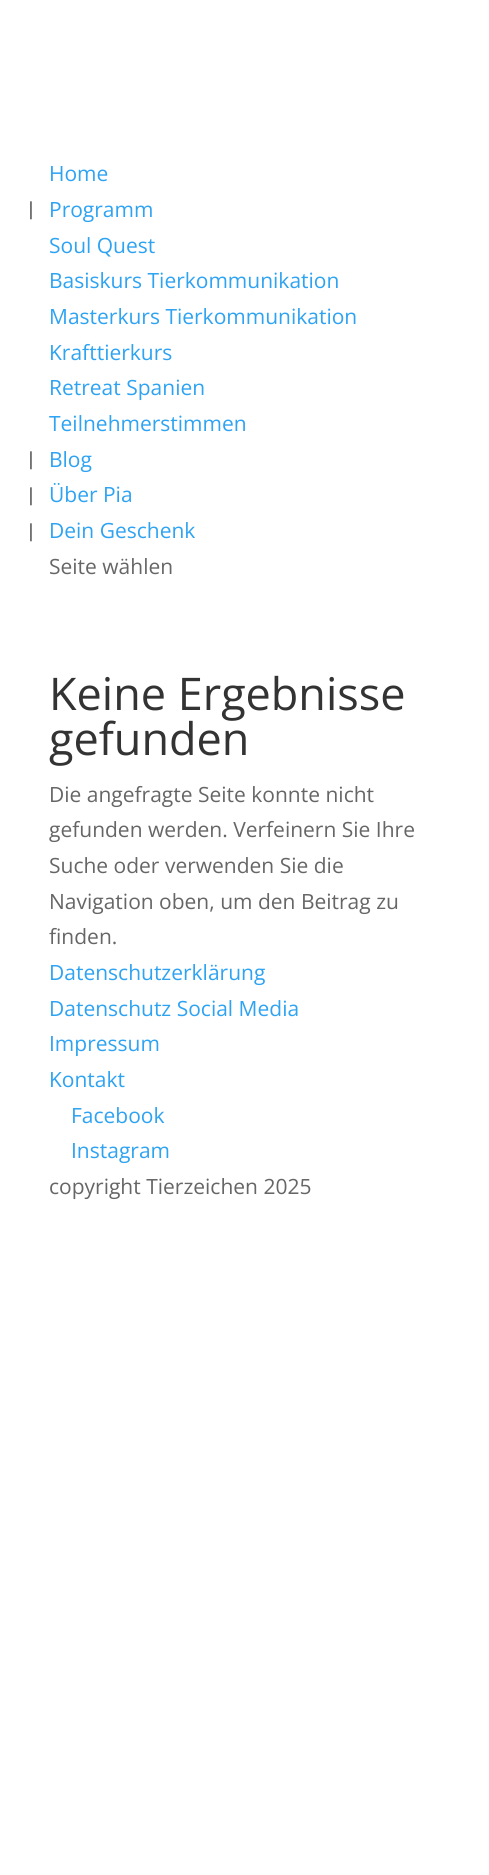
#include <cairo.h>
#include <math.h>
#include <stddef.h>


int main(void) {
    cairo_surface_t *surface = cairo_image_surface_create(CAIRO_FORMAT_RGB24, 489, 1875);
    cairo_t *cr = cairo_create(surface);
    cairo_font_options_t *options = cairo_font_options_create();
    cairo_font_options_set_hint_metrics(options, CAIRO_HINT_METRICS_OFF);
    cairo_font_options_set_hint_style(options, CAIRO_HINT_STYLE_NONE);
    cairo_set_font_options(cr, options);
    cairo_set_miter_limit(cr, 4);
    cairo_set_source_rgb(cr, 1, 1, 1);
    cairo_paint(cr);
    cairo_select_font_face(cr, "Open Sans", CAIRO_FONT_SLANT_NORMAL, CAIRO_FONT_WEIGHT_NORMAL);
    cairo_set_font_size(cr, 21);
    cairo_set_source_rgb(cr, 0.18, 0.639, 0.949);
    cairo_move_to(cr, 49, 181);
    cairo_show_text(cr, "Home");
    cairo_select_font_face(cr, "Open Sans Medium", CAIRO_FONT_SLANT_NORMAL, CAIRO_FONT_WEIGHT_NORMAL);
    cairo_set_font_size(cr, 18);
    cairo_set_source_rgb(cr, 0.259, 0.259, 0.259);
    cairo_move_to(cr, 26, 215);
    cairo_show_text(cr, "|");
    cairo_select_font_face(cr, "Open Sans", CAIRO_FONT_SLANT_NORMAL, CAIRO_FONT_WEIGHT_NORMAL);
    cairo_set_font_size(cr, 21);
    cairo_set_source_rgb(cr, 0.18, 0.639, 0.949);
    cairo_move_to(cr, 49, 217);
    cairo_show_text(cr, "Programm");
    cairo_move_to(cr, 49, 253);
    cairo_show_text(cr, "Soul Quest");
    cairo_move_to(cr, 49, 288);
    cairo_show_text(cr, "Basiskurs Tierkommunikation");
    cairo_move_to(cr, 49, 324);
    cairo_show_text(cr, "Masterkurs Tierkommunikation");
    cairo_move_to(cr, 49, 360);
    cairo_show_text(cr, "Krafttierkurs");
    cairo_move_to(cr, 49, 395);
    cairo_show_text(cr, "Retreat Spanien");
    cairo_move_to(cr, 49, 431);
    cairo_show_text(cr, "Teilnehmerstimmen");
    cairo_select_font_face(cr, "Open Sans Medium", CAIRO_FONT_SLANT_NORMAL, CAIRO_FONT_WEIGHT_NORMAL);
    cairo_set_font_size(cr, 18);
    cairo_set_source_rgb(cr, 0.259, 0.259, 0.259);
    cairo_move_to(cr, 26, 465);
    cairo_show_text(cr, "|");
    cairo_select_font_face(cr, "Open Sans", CAIRO_FONT_SLANT_NORMAL, CAIRO_FONT_WEIGHT_NORMAL);
    cairo_set_font_size(cr, 21);
    cairo_set_source_rgb(cr, 0.18, 0.639, 0.949);
    cairo_move_to(cr, 49, 467);
    cairo_show_text(cr, "Blog");
    cairo_select_font_face(cr, "Open Sans Medium", CAIRO_FONT_SLANT_NORMAL, CAIRO_FONT_WEIGHT_NORMAL);
    cairo_set_font_size(cr, 18);
    cairo_set_source_rgb(cr, 0.259, 0.259, 0.259);
    cairo_move_to(cr, 26, 501);
    cairo_show_text(cr, "|");
    cairo_select_font_face(cr, "Open Sans", CAIRO_FONT_SLANT_NORMAL, CAIRO_FONT_WEIGHT_NORMAL);
    cairo_set_font_size(cr, 21);
    cairo_set_source_rgb(cr, 0.18, 0.639, 0.949);
    cairo_move_to(cr, 49, 502);
    cairo_show_text(cr, "Über Pia");
    cairo_select_font_face(cr, "Open Sans Medium", CAIRO_FONT_SLANT_NORMAL, CAIRO_FONT_WEIGHT_NORMAL);
    cairo_set_font_size(cr, 18);
    cairo_set_source_rgb(cr, 0.259, 0.259, 0.259);
    cairo_move_to(cr, 26, 537);
    cairo_show_text(cr, "|");
    cairo_select_font_face(cr, "Open Sans", CAIRO_FONT_SLANT_NORMAL, CAIRO_FONT_WEIGHT_NORMAL);
    cairo_set_font_size(cr, 21);
    cairo_set_source_rgb(cr, 0.18, 0.639, 0.949);
    cairo_move_to(cr, 49, 538);
    cairo_show_text(cr, "Dein Geschenk");
    cairo_set_source_rgb(cr, 0.4, 0.4, 0.4);
    cairo_move_to(cr, 49, 574);
    cairo_show_text(cr, "Seite wählen");
    cairo_set_font_size(cr, 45);
    cairo_set_source_rgb(cr, 0.2, 0.2, 0.2);
    cairo_move_to(cr, 49, 710);
    cairo_show_text(cr, "Keine Ergebnisse");
    cairo_move_to(cr, 49, 755);
    cairo_show_text(cr, "gefunden");
    cairo_set_font_size(cr, 21);
    cairo_set_source_rgb(cr, 0.4, 0.4, 0.4);
    cairo_move_to(cr, 49, 802);
    cairo_show_text(cr, "Die angefragte Seite konnte nicht");
    cairo_move_to(cr, 49, 837);
    cairo_show_text(cr, "gefunden werden. Verfeinern Sie Ihre");
    cairo_move_to(cr, 49, 873);
    cairo_show_text(cr, "Suche oder verwenden Sie die");
    cairo_move_to(cr, 49, 909);
    cairo_show_text(cr, "Navigation oben, um den Beitrag zu");
    cairo_move_to(cr, 49, 944);
    cairo_show_text(cr, "finden.");
    cairo_set_source_rgb(cr, 0.18, 0.639, 0.949);
    cairo_move_to(cr, 49, 980);
    cairo_show_text(cr, "Datenschutzerklärung");
    cairo_move_to(cr, 49, 1016);
    cairo_show_text(cr, "Datenschutz Social Media");
    cairo_move_to(cr, 49, 1051);
    cairo_show_text(cr, "Impressum");
    cairo_move_to(cr, 49, 1087);
    cairo_show_text(cr, "Kontakt");
    cairo_move_to(cr, 71, 1123);
    cairo_show_text(cr, "Facebook");
    cairo_move_to(cr, 71, 1158);
    cairo_show_text(cr, "Instagram");
    cairo_set_source_rgb(cr, 0.4, 0.4, 0.4);
    cairo_move_to(cr, 49, 1194);
    cairo_show_text(cr, "copyright Tierzeichen 2025");
    cairo_surface_write_to_png(surface, "page.png");
    cairo_font_options_destroy(options);
    cairo_destroy(cr);
    cairo_surface_destroy(surface);
    return 0;
}
